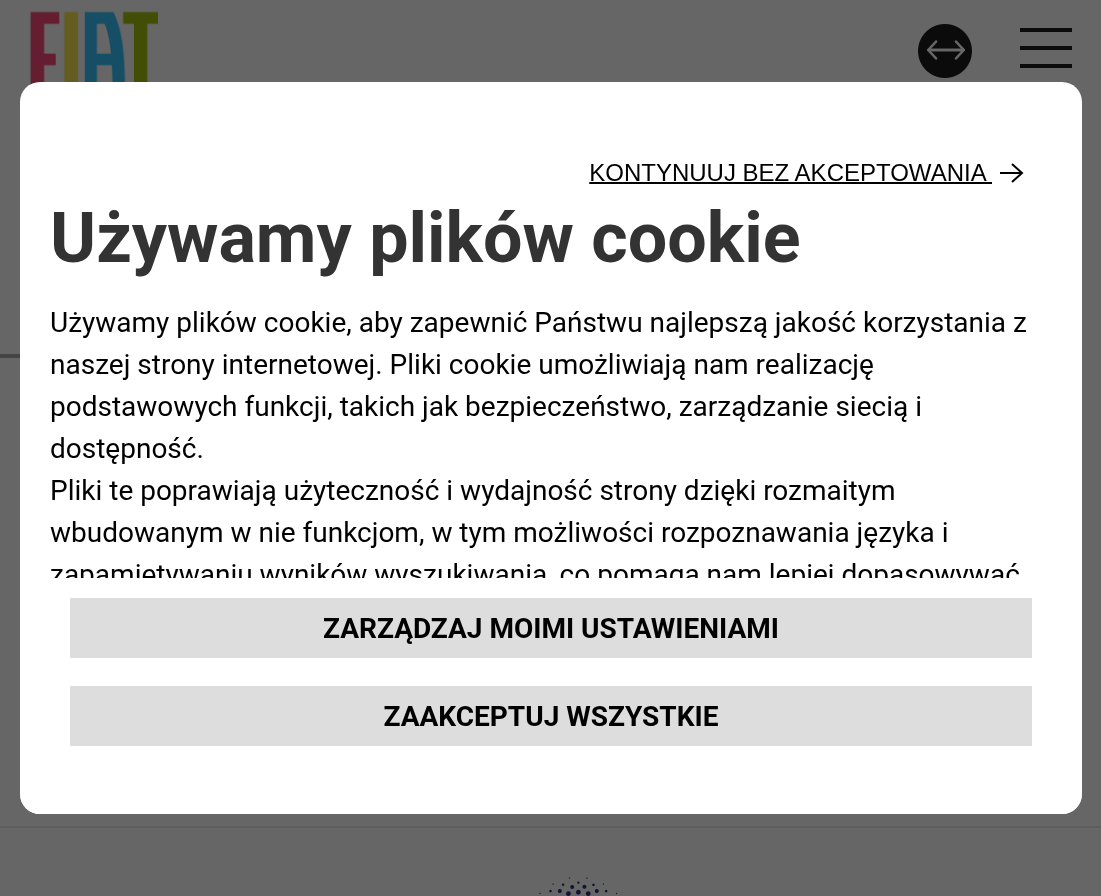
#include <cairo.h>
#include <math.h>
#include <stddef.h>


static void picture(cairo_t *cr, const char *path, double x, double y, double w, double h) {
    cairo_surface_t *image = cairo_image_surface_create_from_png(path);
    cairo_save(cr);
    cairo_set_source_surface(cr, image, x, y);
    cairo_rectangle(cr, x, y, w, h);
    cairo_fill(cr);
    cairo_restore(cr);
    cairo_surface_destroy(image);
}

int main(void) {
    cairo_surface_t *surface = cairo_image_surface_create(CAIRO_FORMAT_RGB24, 1101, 896);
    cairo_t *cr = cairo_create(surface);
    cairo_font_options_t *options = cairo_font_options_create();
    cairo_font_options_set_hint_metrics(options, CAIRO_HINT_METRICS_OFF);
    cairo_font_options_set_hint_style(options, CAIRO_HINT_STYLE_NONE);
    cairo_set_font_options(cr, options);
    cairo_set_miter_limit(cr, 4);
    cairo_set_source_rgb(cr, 1, 1, 1);
    cairo_paint(cr);
    picture(cr, "img2.png", 30, 11, 128, 74);
    cairo_set_source_rgb(cr, 0.106, 0.11, 0.106);
    cairo_arc(cr, 945, 51, 27, 0, 2 * M_PI);
    cairo_fill(cr);
    picture(cr, "img3.png", 927, 40, 38, 20);
    cairo_rectangle(cr, 1020, 28, 52, 4);
    cairo_fill(cr);
    cairo_rectangle(cr, 1020, 64, 52, 4);
    cairo_fill(cr);
    cairo_rectangle(cr, 1020, 46, 52, 4);
    cairo_fill(cr);
    cairo_set_source_rgb(cr, 0.663, 0.667, 0.663);
    cairo_rectangle(cr, 0, 354, 20, 4);
    cairo_fill(cr);
    cairo_set_source_rgb(cr, 0.914, 0.914, 0.914);
    cairo_rectangle(cr, 0, 826, 1101, 2);
    cairo_fill(cr);
    picture(cr, "img4.png", 539, 877, 79, 19);
    picture(cr, "img1.png", 0, 0, 1101, 896);
    cairo_surface_write_to_png(surface, "page.png");
    cairo_font_options_destroy(options);
    cairo_destroy(cr);
    cairo_surface_destroy(surface);
    return 0;
}
